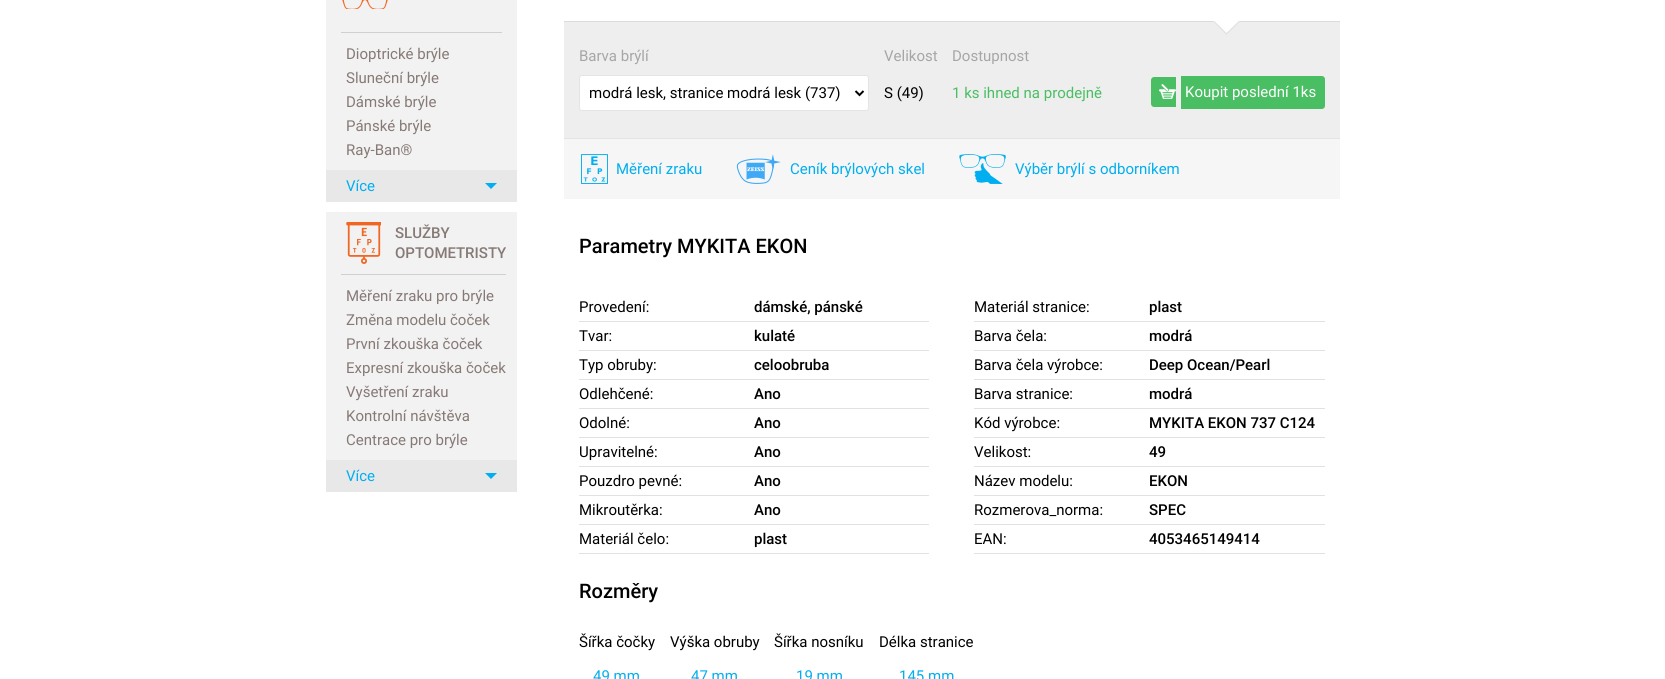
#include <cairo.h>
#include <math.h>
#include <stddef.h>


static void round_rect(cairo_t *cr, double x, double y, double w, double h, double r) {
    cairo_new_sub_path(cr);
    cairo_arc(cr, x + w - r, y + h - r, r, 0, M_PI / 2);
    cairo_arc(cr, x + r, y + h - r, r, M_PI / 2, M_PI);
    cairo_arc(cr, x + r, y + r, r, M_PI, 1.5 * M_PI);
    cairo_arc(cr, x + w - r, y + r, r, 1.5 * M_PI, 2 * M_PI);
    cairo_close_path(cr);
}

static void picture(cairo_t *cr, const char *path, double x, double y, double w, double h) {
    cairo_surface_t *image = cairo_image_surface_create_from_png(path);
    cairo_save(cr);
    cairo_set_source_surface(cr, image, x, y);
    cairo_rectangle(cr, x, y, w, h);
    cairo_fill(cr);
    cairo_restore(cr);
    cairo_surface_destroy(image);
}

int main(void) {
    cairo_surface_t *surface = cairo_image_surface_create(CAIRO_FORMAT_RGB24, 1665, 679);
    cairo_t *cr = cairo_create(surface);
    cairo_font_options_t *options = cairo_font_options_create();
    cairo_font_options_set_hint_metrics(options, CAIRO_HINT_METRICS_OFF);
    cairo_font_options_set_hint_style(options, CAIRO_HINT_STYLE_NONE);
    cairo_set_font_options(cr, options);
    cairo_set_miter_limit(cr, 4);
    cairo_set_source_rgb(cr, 1, 1, 1);
    cairo_paint(cr);
    cairo_set_source_rgb(cr, 0.949, 0.949, 0.949);
    cairo_rectangle(cr, 326, 0, 191, 170);
    cairo_fill(cr);
    cairo_set_source_rgb(cr, 0.816, 0.816, 0.816);
    cairo_rectangle(cr, 341, 32, 161, 1);
    cairo_fill(cr);
    picture(cr, "img1.png", 342, 0, 46, 9);
    cairo_select_font_face(cr, "Roboto", CAIRO_FONT_SLANT_NORMAL, CAIRO_FONT_WEIGHT_NORMAL);
    cairo_set_font_size(cr, 15);
    cairo_set_source_rgb(cr, 0.525, 0.475, 0.463);
    cairo_move_to(cr, 346, 59);
    cairo_show_text(cr, "Dioptrické brýle");
    cairo_move_to(cr, 346, 83);
    cairo_show_text(cr, "Sluneční brýle");
    cairo_move_to(cr, 346, 107);
    cairo_show_text(cr, "Dámské brýle");
    cairo_move_to(cr, 346, 131);
    cairo_show_text(cr, "Pánské brýle");
    cairo_move_to(cr, 346, 155);
    cairo_show_text(cr, "Ray-Ban®");
    cairo_set_source_rgb(cr, 0.91, 0.91, 0.91);
    cairo_rectangle(cr, 326, 170, 191, 32);
    cairo_fill(cr);
    cairo_set_source_rgb(cr, 0.004, 0.682, 0.941);
    cairo_move_to(cr, 346, 191);
    cairo_show_text(cr, "Více");
    cairo_set_fill_rule(cr, CAIRO_FILL_RULE_EVEN_ODD);
    cairo_new_path(cr);
    cairo_move_to(cr, 485, 183);
    cairo_line_to(cr, 497, 183);
    cairo_line_to(cr, 491, 189);
    cairo_close_path(cr);
    cairo_fill(cr);
    cairo_set_source_rgb(cr, 0.949, 0.949, 0.949);
    cairo_rectangle(cr, 326, 212, 191, 248);
    cairo_fill(cr);
    cairo_set_source_rgb(cr, 0.816, 0.816, 0.816);
    cairo_rectangle(cr, 341, 274, 165, 1);
    cairo_fill(cr);
    picture(cr, "img2.png", 346, 222, 35, 42);
    cairo_select_font_face(cr, "Roboto Medium", CAIRO_FONT_SLANT_NORMAL, CAIRO_FONT_WEIGHT_NORMAL);
    cairo_set_source_rgb(cr, 0.525, 0.475, 0.463);
    cairo_move_to(cr, 395, 238);
    cairo_show_text(cr, "SLUŽBY");
    cairo_move_to(cr, 395, 258);
    cairo_show_text(cr, "OPTOMETRISTY");
    cairo_select_font_face(cr, "Roboto", CAIRO_FONT_SLANT_NORMAL, CAIRO_FONT_WEIGHT_NORMAL);
    cairo_move_to(cr, 346, 301);
    cairo_show_text(cr, "Měření zraku pro brýle");
    cairo_move_to(cr, 346, 325);
    cairo_show_text(cr, "Změna modelu čoček");
    cairo_move_to(cr, 346, 349);
    cairo_show_text(cr, "První zkouška čoček");
    cairo_move_to(cr, 346, 373);
    cairo_show_text(cr, "Expresní zkouška čoček");
    cairo_move_to(cr, 346, 397);
    cairo_show_text(cr, "Vyšetření zraku");
    cairo_move_to(cr, 346, 421);
    cairo_show_text(cr, "Kontrolní návštěva");
    cairo_move_to(cr, 346, 445);
    cairo_show_text(cr, "Centrace pro brýle");
    cairo_set_source_rgb(cr, 0.91, 0.91, 0.91);
    cairo_rectangle(cr, 326, 460, 191, 32);
    cairo_fill(cr);
    cairo_set_source_rgb(cr, 0.004, 0.682, 0.941);
    cairo_move_to(cr, 346, 481);
    cairo_show_text(cr, "Více");
    cairo_new_path(cr);
    cairo_move_to(cr, 485, 473);
    cairo_line_to(cr, 497, 473);
    cairo_line_to(cr, 491, 479);
    cairo_close_path(cr);
    cairo_fill(cr);
    cairo_set_source_rgb(cr, 0.933, 0.933, 0.933);
    cairo_rectangle(cr, 564, 22, 776, 116);
    cairo_fill(cr);
    cairo_set_source_rgb(cr, 0.855, 0.855, 0.855);
    cairo_rectangle(cr, 564, 21, 776, 1);
    cairo_fill(cr);
    cairo_set_source_rgb(cr, 1, 1, 1);
    cairo_new_path(cr);
    cairo_move_to(cr, 1240, 21);
    cairo_line_to(cr, 1226.5, 33);
    cairo_line_to(cr, 1213, 21);
    cairo_close_path(cr);
    cairo_fill(cr);
    cairo_save(cr);
    cairo_set_fill_rule(cr, CAIRO_FILL_RULE_WINDING);
    cairo_rectangle(cr, 1213, 21, 27, 14);
    cairo_clip(cr);
    cairo_new_path(cr);
    cairo_move_to(cr, 1240, 20.5);
    cairo_line_to(cr, 1226.5, 34);
    cairo_line_to(cr, 1213, 20.5);
    cairo_set_source_rgb(cr, 0.878, 0.878, 0.878);
    cairo_set_line_width(cr, 1.1);
    cairo_stroke(cr);
    cairo_restore(cr);
    cairo_set_source_rgb(cr, 0.651, 0.651, 0.651);
    cairo_move_to(cr, 579, 61);
    cairo_show_text(cr, "Barva brýlí");
    cairo_set_source_rgb(cr, 1, 1, 1);
    round_rect(cr, 579.5, 75.5, 289, 35, 2.5);
    cairo_fill_preserve(cr);
    cairo_set_source_rgb(cr, 0.894, 0.894, 0.894);
    cairo_set_line_width(cr, 1);
    cairo_stroke(cr);
    cairo_new_path(cr);
    cairo_move_to(cr, 855.5, 91);
    cairo_line_to(cr, 859.5, 95);
    cairo_line_to(cr, 863.5, 91);
    cairo_set_source_rgb(cr, 0, 0, 0);
    cairo_set_line_width(cr, 2);
    cairo_stroke(cr);
    cairo_move_to(cr, 589, 98);
    cairo_show_text(cr, "modrá lesk, stranice modrá lesk (737)");
    cairo_set_source_rgb(cr, 0.651, 0.651, 0.651);
    cairo_move_to(cr, 884, 61);
    cairo_show_text(cr, "Velikost");
    cairo_set_source_rgb(cr, 0, 0, 0);
    cairo_move_to(cr, 884, 98);
    cairo_show_text(cr, "S (49)");
    cairo_set_source_rgb(cr, 0.651, 0.651, 0.651);
    cairo_move_to(cr, 952, 61);
    cairo_show_text(cr, "Dostupnost");
    cairo_set_source_rgb(cr, 0.286, 0.745, 0.388);
    cairo_move_to(cr, 952, 98);
    cairo_show_text(cr, "1 ks ihned na prodejně");
    cairo_new_path(cr);
    cairo_move_to(cr, 1154, 77);
    cairo_line_to(cr, 1176, 77);
    cairo_line_to(cr, 1176, 107);
    cairo_line_to(cr, 1154, 107);
    cairo_curve_to(cr, 1152.5, 107, 1151, 105.5, 1151, 104);
    cairo_line_to(cr, 1151, 80);
    cairo_curve_to(cr, 1151, 78.5, 1152.5, 77, 1154, 77);
    cairo_close_path(cr);
    cairo_fill(cr);
    cairo_new_path(cr);
    cairo_move_to(cr, 1181, 76);
    cairo_line_to(cr, 1322, 76);
    cairo_curve_to(cr, 1323.5, 76, 1325, 77.5, 1325, 79);
    cairo_line_to(cr, 1325, 106);
    cairo_curve_to(cr, 1325, 107.5, 1323.5, 109, 1322, 109);
    cairo_line_to(cr, 1181, 109);
    cairo_close_path(cr);
    cairo_fill(cr);
    picture(cr, "img3.png", 1159, 84, 17, 15);
    cairo_set_source_rgb(cr, 1, 1, 1);
    cairo_move_to(cr, 1185, 97);
    cairo_show_text(cr, "Koupit poslední 1ks");
    cairo_set_source_rgb(cr, 0.961, 0.961, 0.961);
    cairo_rectangle(cr, 564, 139, 776, 60);
    cairo_fill(cr);
    cairo_set_source_rgb(cr, 0.894, 0.894, 0.894);
    cairo_rectangle(cr, 564, 138, 776, 1);
    cairo_fill(cr);
    picture(cr, "img4.png", 581, 154, 27, 30);
    cairo_set_source_rgb(cr, 0.004, 0.682, 0.941);
    cairo_move_to(cr, 616, 174);
    cairo_show_text(cr, "Měření zraku");
    picture(cr, "img5.png", 736, 154, 45, 30);
    cairo_move_to(cr, 790, 174);
    cairo_show_text(cr, "Ceník brýlových skel");
    picture(cr, "img6.png", 959, 154, 47, 30);
    cairo_move_to(cr, 1015, 174);
    cairo_show_text(cr, "Výběr brýlí s odborníkem");
    cairo_select_font_face(cr, "Roboto Medium", CAIRO_FONT_SLANT_NORMAL, CAIRO_FONT_WEIGHT_NORMAL);
    cairo_set_font_size(cr, 20);
    cairo_set_source_rgb(cr, 0, 0, 0);
    cairo_move_to(cr, 579, 253);
    cairo_show_text(cr, "Parametry MYKITA EKON");
    cairo_set_source_rgb(cr, 0.882, 0.882, 0.882);
    cairo_rectangle(cr, 579, 321, 350, 1);
    cairo_fill(cr);
    cairo_select_font_face(cr, "Roboto", CAIRO_FONT_SLANT_NORMAL, CAIRO_FONT_WEIGHT_NORMAL);
    cairo_set_font_size(cr, 15);
    cairo_set_source_rgb(cr, 0, 0, 0);
    cairo_move_to(cr, 579, 312);
    cairo_show_text(cr, "Provedení:");
    cairo_select_font_face(cr, "Roboto Medium", CAIRO_FONT_SLANT_NORMAL, CAIRO_FONT_WEIGHT_NORMAL);
    cairo_move_to(cr, 754, 312);
    cairo_show_text(cr, "dámské, pánské");
    cairo_set_source_rgb(cr, 0.882, 0.882, 0.882);
    cairo_rectangle(cr, 579, 350, 350, 1);
    cairo_fill(cr);
    cairo_select_font_face(cr, "Roboto", CAIRO_FONT_SLANT_NORMAL, CAIRO_FONT_WEIGHT_NORMAL);
    cairo_set_source_rgb(cr, 0, 0, 0);
    cairo_move_to(cr, 579, 341);
    cairo_show_text(cr, "Tvar:");
    cairo_select_font_face(cr, "Roboto Medium", CAIRO_FONT_SLANT_NORMAL, CAIRO_FONT_WEIGHT_NORMAL);
    cairo_move_to(cr, 754, 341);
    cairo_show_text(cr, "kulaté");
    cairo_set_source_rgb(cr, 0.882, 0.882, 0.882);
    cairo_rectangle(cr, 579, 379, 350, 1);
    cairo_fill(cr);
    cairo_select_font_face(cr, "Roboto", CAIRO_FONT_SLANT_NORMAL, CAIRO_FONT_WEIGHT_NORMAL);
    cairo_set_source_rgb(cr, 0, 0, 0);
    cairo_move_to(cr, 579, 370);
    cairo_show_text(cr, "Typ obruby:");
    cairo_select_font_face(cr, "Roboto Medium", CAIRO_FONT_SLANT_NORMAL, CAIRO_FONT_WEIGHT_NORMAL);
    cairo_move_to(cr, 754, 370);
    cairo_show_text(cr, "celoobruba");
    cairo_set_source_rgb(cr, 0.882, 0.882, 0.882);
    cairo_rectangle(cr, 579, 408, 350, 1);
    cairo_fill(cr);
    cairo_select_font_face(cr, "Roboto", CAIRO_FONT_SLANT_NORMAL, CAIRO_FONT_WEIGHT_NORMAL);
    cairo_set_source_rgb(cr, 0, 0, 0);
    cairo_move_to(cr, 579, 399);
    cairo_show_text(cr, "Odlehčené:");
    cairo_select_font_face(cr, "Roboto Medium", CAIRO_FONT_SLANT_NORMAL, CAIRO_FONT_WEIGHT_NORMAL);
    cairo_move_to(cr, 754, 399);
    cairo_show_text(cr, "Ano");
    cairo_set_source_rgb(cr, 0.882, 0.882, 0.882);
    cairo_rectangle(cr, 579, 437, 350, 1);
    cairo_fill(cr);
    cairo_select_font_face(cr, "Roboto", CAIRO_FONT_SLANT_NORMAL, CAIRO_FONT_WEIGHT_NORMAL);
    cairo_set_source_rgb(cr, 0, 0, 0);
    cairo_move_to(cr, 579, 428);
    cairo_show_text(cr, "Odolné:");
    cairo_select_font_face(cr, "Roboto Medium", CAIRO_FONT_SLANT_NORMAL, CAIRO_FONT_WEIGHT_NORMAL);
    cairo_move_to(cr, 754, 428);
    cairo_show_text(cr, "Ano");
    cairo_set_source_rgb(cr, 0.882, 0.882, 0.882);
    cairo_rectangle(cr, 579, 466, 350, 1);
    cairo_fill(cr);
    cairo_select_font_face(cr, "Roboto", CAIRO_FONT_SLANT_NORMAL, CAIRO_FONT_WEIGHT_NORMAL);
    cairo_set_source_rgb(cr, 0, 0, 0);
    cairo_move_to(cr, 579, 457);
    cairo_show_text(cr, "Upravitelné:");
    cairo_select_font_face(cr, "Roboto Medium", CAIRO_FONT_SLANT_NORMAL, CAIRO_FONT_WEIGHT_NORMAL);
    cairo_move_to(cr, 754, 457);
    cairo_show_text(cr, "Ano");
    cairo_set_source_rgb(cr, 0.882, 0.882, 0.882);
    cairo_rectangle(cr, 579, 495, 350, 1);
    cairo_fill(cr);
    cairo_select_font_face(cr, "Roboto", CAIRO_FONT_SLANT_NORMAL, CAIRO_FONT_WEIGHT_NORMAL);
    cairo_set_source_rgb(cr, 0, 0, 0);
    cairo_move_to(cr, 579, 486);
    cairo_show_text(cr, "Pouzdro pevné:");
    cairo_select_font_face(cr, "Roboto Medium", CAIRO_FONT_SLANT_NORMAL, CAIRO_FONT_WEIGHT_NORMAL);
    cairo_move_to(cr, 754, 486);
    cairo_show_text(cr, "Ano");
    cairo_set_source_rgb(cr, 0.882, 0.882, 0.882);
    cairo_rectangle(cr, 579, 524, 350, 1);
    cairo_fill(cr);
    cairo_select_font_face(cr, "Roboto", CAIRO_FONT_SLANT_NORMAL, CAIRO_FONT_WEIGHT_NORMAL);
    cairo_set_source_rgb(cr, 0, 0, 0);
    cairo_move_to(cr, 579, 515);
    cairo_show_text(cr, "Mikroutěrka:");
    cairo_select_font_face(cr, "Roboto Medium", CAIRO_FONT_SLANT_NORMAL, CAIRO_FONT_WEIGHT_NORMAL);
    cairo_move_to(cr, 754, 515);
    cairo_show_text(cr, "Ano");
    cairo_set_source_rgb(cr, 0.882, 0.882, 0.882);
    cairo_rectangle(cr, 579, 553, 350, 1);
    cairo_fill(cr);
    cairo_select_font_face(cr, "Roboto", CAIRO_FONT_SLANT_NORMAL, CAIRO_FONT_WEIGHT_NORMAL);
    cairo_set_source_rgb(cr, 0, 0, 0);
    cairo_move_to(cr, 579, 544);
    cairo_show_text(cr, "Materiál čelo:");
    cairo_select_font_face(cr, "Roboto Medium", CAIRO_FONT_SLANT_NORMAL, CAIRO_FONT_WEIGHT_NORMAL);
    cairo_move_to(cr, 754, 544);
    cairo_show_text(cr, "plast");
    cairo_set_source_rgb(cr, 0.882, 0.882, 0.882);
    cairo_rectangle(cr, 974, 321, 351, 1);
    cairo_fill(cr);
    cairo_select_font_face(cr, "Roboto", CAIRO_FONT_SLANT_NORMAL, CAIRO_FONT_WEIGHT_NORMAL);
    cairo_set_source_rgb(cr, 0, 0, 0);
    cairo_move_to(cr, 974, 312);
    cairo_show_text(cr, "Materiál stranice:");
    cairo_select_font_face(cr, "Roboto Medium", CAIRO_FONT_SLANT_NORMAL, CAIRO_FONT_WEIGHT_NORMAL);
    cairo_move_to(cr, 1149, 312);
    cairo_show_text(cr, "plast");
    cairo_set_source_rgb(cr, 0.882, 0.882, 0.882);
    cairo_rectangle(cr, 974, 350, 351, 1);
    cairo_fill(cr);
    cairo_select_font_face(cr, "Roboto", CAIRO_FONT_SLANT_NORMAL, CAIRO_FONT_WEIGHT_NORMAL);
    cairo_set_source_rgb(cr, 0, 0, 0);
    cairo_move_to(cr, 974, 341);
    cairo_show_text(cr, "Barva čela:");
    cairo_select_font_face(cr, "Roboto Medium", CAIRO_FONT_SLANT_NORMAL, CAIRO_FONT_WEIGHT_NORMAL);
    cairo_move_to(cr, 1149, 341);
    cairo_show_text(cr, "modrá");
    cairo_set_source_rgb(cr, 0.882, 0.882, 0.882);
    cairo_rectangle(cr, 974, 379, 351, 1);
    cairo_fill(cr);
    cairo_select_font_face(cr, "Roboto", CAIRO_FONT_SLANT_NORMAL, CAIRO_FONT_WEIGHT_NORMAL);
    cairo_set_source_rgb(cr, 0, 0, 0);
    cairo_move_to(cr, 974, 370);
    cairo_show_text(cr, "Barva čela výrobce:");
    cairo_select_font_face(cr, "Roboto Medium", CAIRO_FONT_SLANT_NORMAL, CAIRO_FONT_WEIGHT_NORMAL);
    cairo_move_to(cr, 1149, 370);
    cairo_show_text(cr, "Deep Ocean/Pearl");
    cairo_set_source_rgb(cr, 0.882, 0.882, 0.882);
    cairo_rectangle(cr, 974, 408, 351, 1);
    cairo_fill(cr);
    cairo_select_font_face(cr, "Roboto", CAIRO_FONT_SLANT_NORMAL, CAIRO_FONT_WEIGHT_NORMAL);
    cairo_set_source_rgb(cr, 0, 0, 0);
    cairo_move_to(cr, 974, 399);
    cairo_show_text(cr, "Barva stranice:");
    cairo_select_font_face(cr, "Roboto Medium", CAIRO_FONT_SLANT_NORMAL, CAIRO_FONT_WEIGHT_NORMAL);
    cairo_move_to(cr, 1149, 399);
    cairo_show_text(cr, "modrá");
    cairo_set_source_rgb(cr, 0.882, 0.882, 0.882);
    cairo_rectangle(cr, 974, 437, 351, 1);
    cairo_fill(cr);
    cairo_select_font_face(cr, "Roboto", CAIRO_FONT_SLANT_NORMAL, CAIRO_FONT_WEIGHT_NORMAL);
    cairo_set_source_rgb(cr, 0, 0, 0);
    cairo_move_to(cr, 974, 428);
    cairo_show_text(cr, "Kód výrobce:");
    cairo_select_font_face(cr, "Roboto Medium", CAIRO_FONT_SLANT_NORMAL, CAIRO_FONT_WEIGHT_NORMAL);
    cairo_move_to(cr, 1149, 428);
    cairo_show_text(cr, "MYKITA EKON 737 C124");
    cairo_set_source_rgb(cr, 0.882, 0.882, 0.882);
    cairo_rectangle(cr, 974, 466, 351, 1);
    cairo_fill(cr);
    cairo_select_font_face(cr, "Roboto", CAIRO_FONT_SLANT_NORMAL, CAIRO_FONT_WEIGHT_NORMAL);
    cairo_set_source_rgb(cr, 0, 0, 0);
    cairo_move_to(cr, 974, 457);
    cairo_show_text(cr, "Velikost:");
    cairo_select_font_face(cr, "Roboto Medium", CAIRO_FONT_SLANT_NORMAL, CAIRO_FONT_WEIGHT_NORMAL);
    cairo_move_to(cr, 1149, 457);
    cairo_show_text(cr, "49");
    cairo_set_source_rgb(cr, 0.882, 0.882, 0.882);
    cairo_rectangle(cr, 974, 495, 351, 1);
    cairo_fill(cr);
    cairo_select_font_face(cr, "Roboto", CAIRO_FONT_SLANT_NORMAL, CAIRO_FONT_WEIGHT_NORMAL);
    cairo_set_source_rgb(cr, 0, 0, 0);
    cairo_move_to(cr, 974, 486);
    cairo_show_text(cr, "Název modelu:");
    cairo_select_font_face(cr, "Roboto Medium", CAIRO_FONT_SLANT_NORMAL, CAIRO_FONT_WEIGHT_NORMAL);
    cairo_move_to(cr, 1149, 486);
    cairo_show_text(cr, "EKON");
    cairo_set_source_rgb(cr, 0.882, 0.882, 0.882);
    cairo_rectangle(cr, 974, 524, 351, 1);
    cairo_fill(cr);
    cairo_select_font_face(cr, "Roboto", CAIRO_FONT_SLANT_NORMAL, CAIRO_FONT_WEIGHT_NORMAL);
    cairo_set_source_rgb(cr, 0, 0, 0);
    cairo_move_to(cr, 974, 515);
    cairo_show_text(cr, "Rozmerova_norma:");
    cairo_select_font_face(cr, "Roboto Medium", CAIRO_FONT_SLANT_NORMAL, CAIRO_FONT_WEIGHT_NORMAL);
    cairo_move_to(cr, 1149, 515);
    cairo_show_text(cr, "SPEC");
    cairo_set_source_rgb(cr, 0.882, 0.882, 0.882);
    cairo_rectangle(cr, 974, 553, 351, 1);
    cairo_fill(cr);
    cairo_select_font_face(cr, "Roboto", CAIRO_FONT_SLANT_NORMAL, CAIRO_FONT_WEIGHT_NORMAL);
    cairo_set_source_rgb(cr, 0, 0, 0);
    cairo_move_to(cr, 974, 544);
    cairo_show_text(cr, "EAN:");
    cairo_select_font_face(cr, "Roboto Medium", CAIRO_FONT_SLANT_NORMAL, CAIRO_FONT_WEIGHT_NORMAL);
    cairo_move_to(cr, 1149, 544);
    cairo_show_text(cr, "4053465149414");
    cairo_set_font_size(cr, 20);
    cairo_move_to(cr, 579, 598);
    cairo_show_text(cr, "Rozměry");
    cairo_select_font_face(cr, "Roboto", CAIRO_FONT_SLANT_NORMAL, CAIRO_FONT_WEIGHT_NORMAL);
    cairo_set_font_size(cr, 15);
    cairo_move_to(cr, 579, 647);
    cairo_show_text(cr, "Šířka čočky");
    cairo_set_source_rgb(cr, 0.004, 0.682, 0.941);
    cairo_move_to(cr, 593, 681);
    cairo_show_text(cr, "49 mm");
    cairo_set_source_rgb(cr, 0, 0, 0);
    cairo_move_to(cr, 670, 647);
    cairo_show_text(cr, "Výška obruby");
    cairo_set_source_rgb(cr, 0.004, 0.682, 0.941);
    cairo_move_to(cr, 691, 681);
    cairo_show_text(cr, "47 mm");
    cairo_set_source_rgb(cr, 0, 0, 0);
    cairo_move_to(cr, 774, 647);
    cairo_show_text(cr, "Šířka nosníku");
    cairo_set_source_rgb(cr, 0.004, 0.682, 0.941);
    cairo_move_to(cr, 796, 681);
    cairo_show_text(cr, "19 mm");
    cairo_set_source_rgb(cr, 0, 0, 0);
    cairo_move_to(cr, 879, 647);
    cairo_show_text(cr, "Délka stranice");
    cairo_set_source_rgb(cr, 0.004, 0.682, 0.941);
    cairo_move_to(cr, 899, 681);
    cairo_show_text(cr, "145 mm");
    cairo_surface_write_to_png(surface, "page.png");
    cairo_font_options_destroy(options);
    cairo_destroy(cr);
    cairo_surface_destroy(surface);
    return 0;
}
